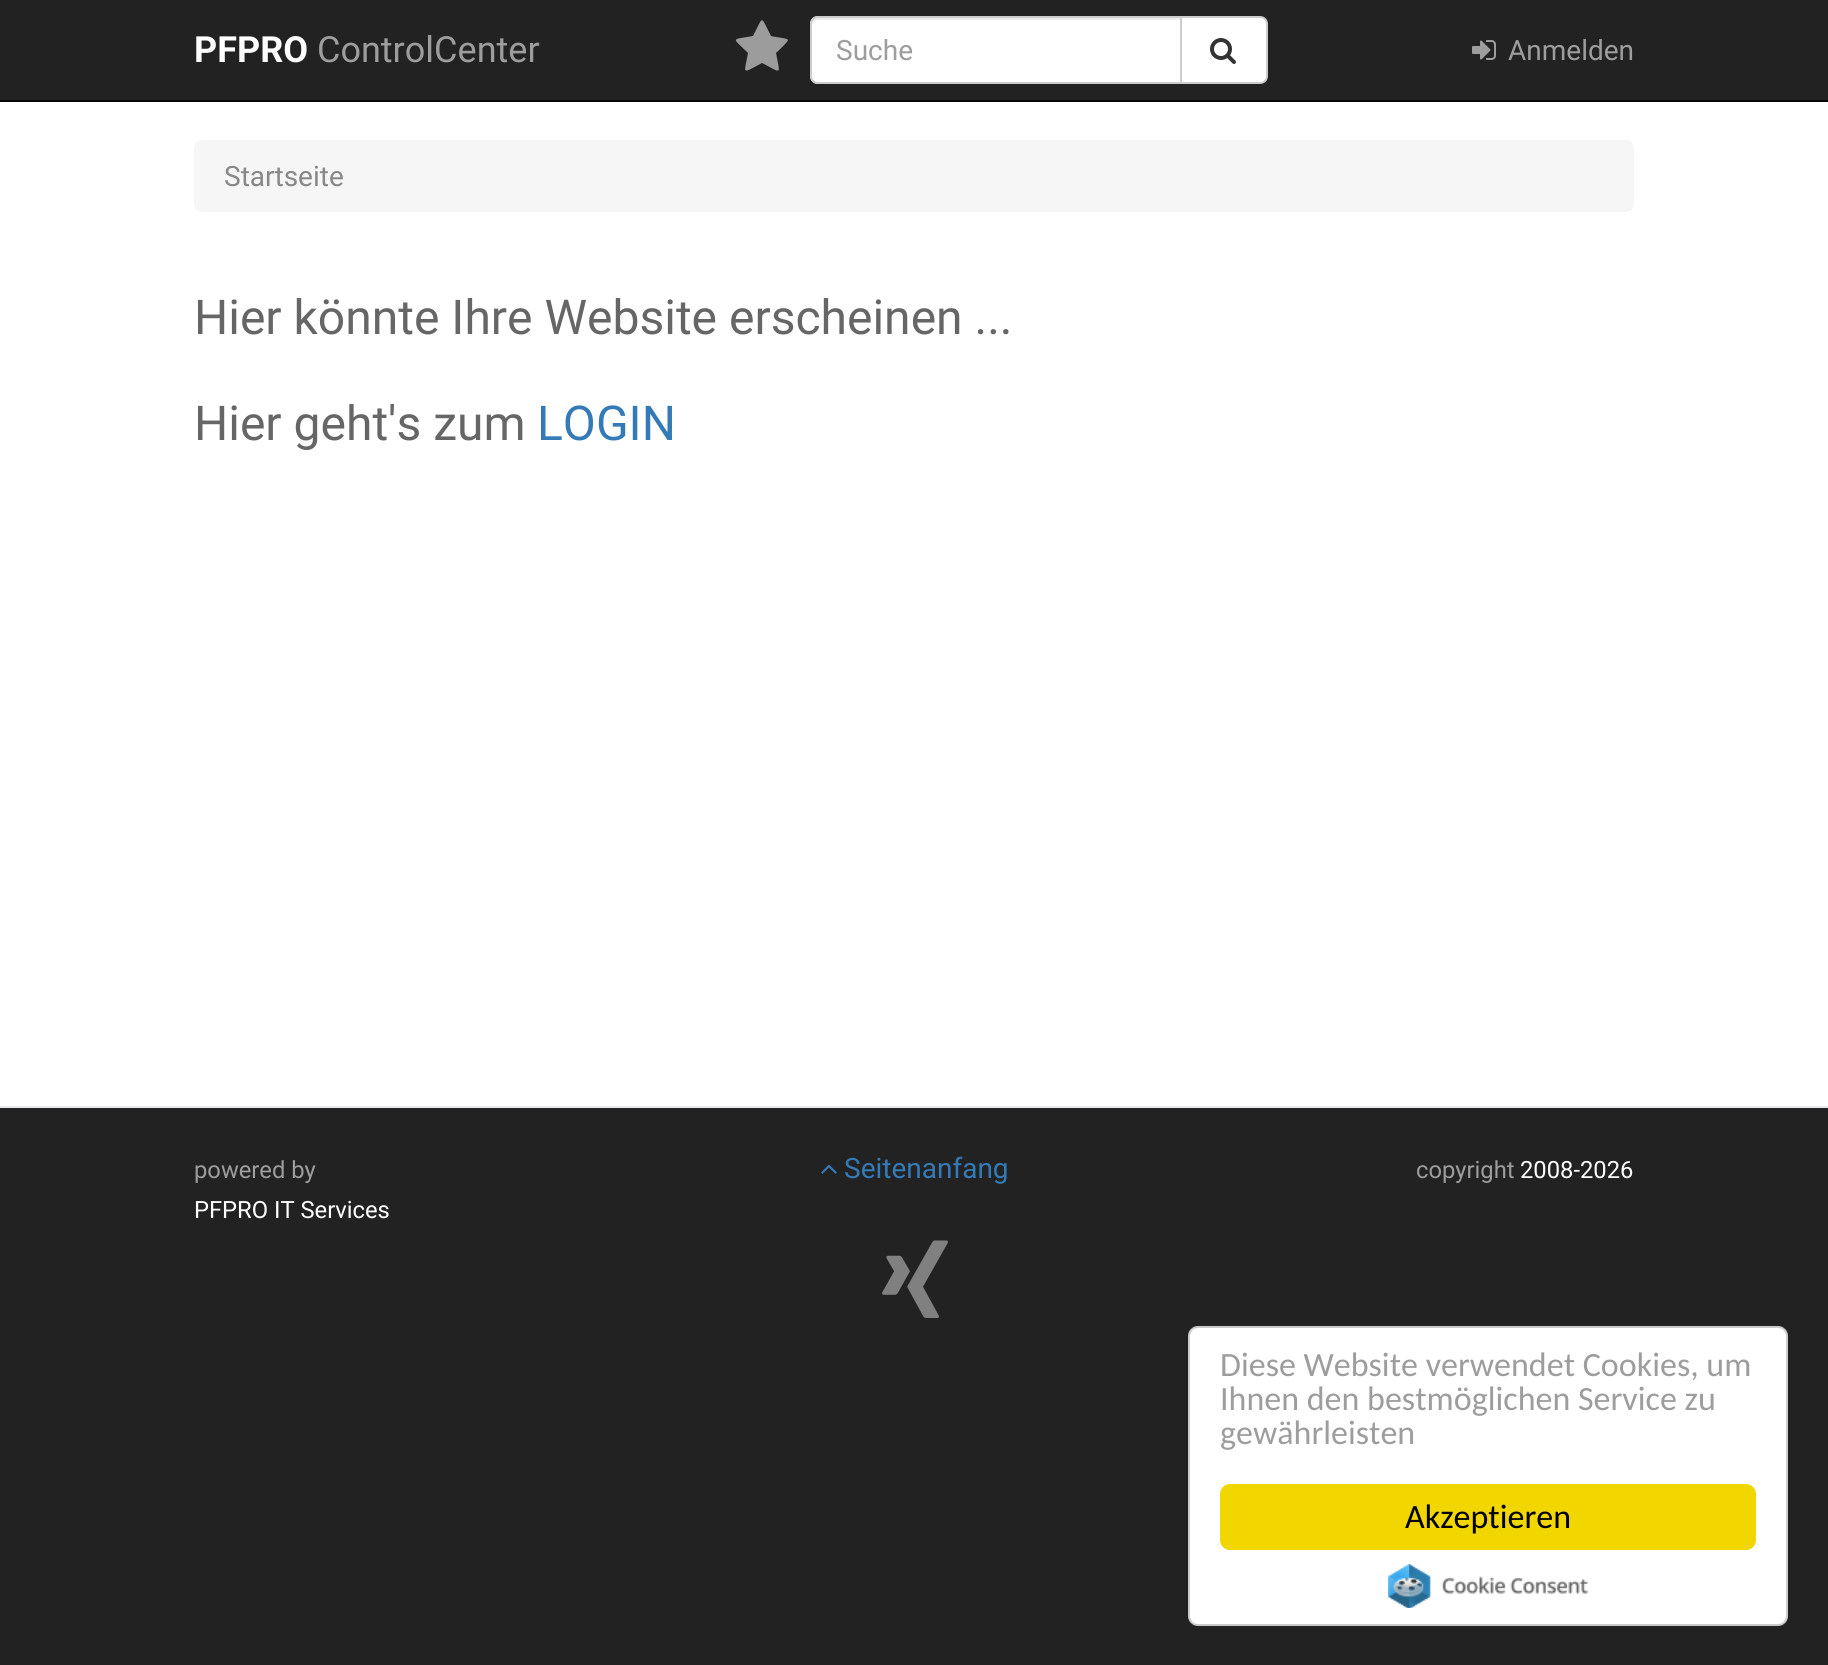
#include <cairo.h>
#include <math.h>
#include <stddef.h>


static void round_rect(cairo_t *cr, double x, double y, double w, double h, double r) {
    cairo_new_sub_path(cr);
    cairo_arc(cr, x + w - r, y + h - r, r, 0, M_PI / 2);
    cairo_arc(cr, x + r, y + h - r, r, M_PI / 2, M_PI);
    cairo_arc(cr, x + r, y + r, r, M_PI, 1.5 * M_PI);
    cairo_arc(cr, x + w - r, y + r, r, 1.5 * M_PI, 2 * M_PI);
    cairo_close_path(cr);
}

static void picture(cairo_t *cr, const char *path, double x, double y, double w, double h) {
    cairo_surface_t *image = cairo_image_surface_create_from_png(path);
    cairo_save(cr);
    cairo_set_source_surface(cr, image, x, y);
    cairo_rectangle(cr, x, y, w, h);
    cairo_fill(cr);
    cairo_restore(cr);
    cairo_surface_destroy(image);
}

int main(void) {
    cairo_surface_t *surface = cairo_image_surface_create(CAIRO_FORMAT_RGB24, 1828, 1665);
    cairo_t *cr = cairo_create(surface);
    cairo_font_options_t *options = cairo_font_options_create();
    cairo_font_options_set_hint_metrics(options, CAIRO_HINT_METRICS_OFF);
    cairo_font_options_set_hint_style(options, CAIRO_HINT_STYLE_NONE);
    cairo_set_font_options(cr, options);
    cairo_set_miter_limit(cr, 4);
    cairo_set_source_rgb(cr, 1, 1, 1);
    cairo_paint(cr);
    cairo_set_source_rgb(cr, 0.133, 0.133, 0.133);
    cairo_rectangle(cr, 0, 0, 1828, 100);
    cairo_fill(cr);
    cairo_set_source_rgb(cr, 0.031, 0.031, 0.031);
    cairo_rectangle(cr, 0, 100, 1828, 2);
    cairo_fill(cr);
    cairo_select_font_face(cr, "Roboto", CAIRO_FONT_SLANT_NORMAL, CAIRO_FONT_WEIGHT_BOLD);
    cairo_set_font_size(cr, 36);
    cairo_set_source_rgb(cr, 1, 1, 1);
    cairo_move_to(cr, 194, 62);
    cairo_show_text(cr, "PFPRO");
    cairo_select_font_face(cr, "Roboto", CAIRO_FONT_SLANT_NORMAL, CAIRO_FONT_WEIGHT_NORMAL);
    cairo_set_source_rgb(cr, 0.616, 0.616, 0.616);
    cairo_move_to(cr, 317, 62);
    cairo_show_text(cr, "ControlCenter");
    cairo_set_source_rgb(cr, 0.612, 0.612, 0.612);
    cairo_new_path(cr);
    cairo_move_to(cr, 788, 40);
    cairo_curve_to(cr, 788, 42, 778, 51, 776, 53);
    cairo_curve_to(cr, 780, 75, 783, 74, 762, 63);
    cairo_curve_to(cr, 741, 74, 744, 75, 748, 53);
    cairo_curve_to(cr, 732, 37, 730, 40, 753, 36);
    cairo_curve_to(cr, 764, 15, 760, 15, 771, 36);
    cairo_curve_to(cr, 773, 37, 788, 38, 788, 40);
    cairo_close_path(cr);
    cairo_fill(cr);
    cairo_set_source_rgb(cr, 1, 1, 1);
    cairo_new_path(cr);
    cairo_move_to(cr, 818, 16);
    cairo_line_to(cr, 1182, 16);
    cairo_line_to(cr, 1182, 84);
    cairo_line_to(cr, 818, 84);
    cairo_curve_to(cr, 813.5, 84, 810, 80.5, 810, 76);
    cairo_line_to(cr, 810, 24);
    cairo_curve_to(cr, 810, 19.5, 813.5, 16, 818, 16);
    cairo_close_path(cr);
    cairo_fill(cr);
    cairo_set_source_rgb(cr, 0.925, 0.925, 0.925);
    cairo_new_path(cr);
    cairo_move_to(cr, 818, 20);
    cairo_line_to(cr, 1180, 20);
    cairo_line_to(cr, 1180, 18);
    cairo_line_to(cr, 818, 18);
    cairo_curve_to(cr, 815, 18, 812, 21, 812, 24);
    cairo_line_to(cr, 812, 26);
    cairo_curve_to(cr, 812, 23, 815, 20, 818, 20);
    cairo_close_path(cr);
    cairo_fill(cr);
    cairo_new_path(cr);
    cairo_move_to(cr, 818, 17);
    cairo_line_to(cr, 1181, 17);
    cairo_line_to(cr, 1181, 83);
    cairo_line_to(cr, 818, 83);
    cairo_curve_to(cr, 814, 83, 811, 80, 811, 76);
    cairo_line_to(cr, 811, 24);
    cairo_curve_to(cr, 811, 20, 814, 17, 818, 17);
    cairo_close_path(cr);
    cairo_set_source_rgb(cr, 0.8, 0.8, 0.8);
    cairo_stroke(cr);
    cairo_set_font_size(cr, 28);
    cairo_set_source_rgb(cr, 0.616, 0.616, 0.616);
    cairo_move_to(cr, 836, 60);
    cairo_show_text(cr, "Suche");
    cairo_set_source_rgb(cr, 1, 1, 1);
    cairo_new_path(cr);
    cairo_move_to(cr, 1181, 17);
    cairo_line_to(cr, 1260, 17);
    cairo_curve_to(cr, 1264, 17, 1267, 20, 1267, 24);
    cairo_line_to(cr, 1267, 76);
    cairo_curve_to(cr, 1267, 80, 1264, 83, 1260, 83);
    cairo_line_to(cr, 1181, 83);
    cairo_close_path(cr);
    cairo_fill_preserve(cr);
    cairo_set_source_rgb(cr, 0.8, 0.8, 0.8);
    cairo_stroke(cr);
    picture(cr, "img1.png", 1210, 38, 26, 26);
    picture(cr, "img2.png", 1472, 40, 24, 20);
    cairo_set_source_rgb(cr, 0.616, 0.616, 0.616);
    cairo_move_to(cr, 1508, 60);
    cairo_show_text(cr, "Anmelden");
    cairo_set_source_rgb(cr, 0.961, 0.961, 0.961);
    round_rect(cr, 194, 140, 1440, 72, 8);
    cairo_fill(cr);
    cairo_set_source_rgb(cr, 0.533, 0.533, 0.533);
    cairo_move_to(cr, 224, 186);
    cairo_show_text(cr, "Startseite");
    cairo_set_font_size(cr, 48);
    cairo_set_source_rgb(cr, 0.4, 0.4, 0.4);
    cairo_move_to(cr, 194, 334);
    cairo_show_text(cr, "Hier könnte Ihre Website erscheinen ...");
    cairo_move_to(cr, 194, 440);
    cairo_show_text(cr, "Hier geht's zum");
    cairo_set_source_rgb(cr, 0.2, 0.478, 0.718);
    cairo_move_to(cr, 537, 440);
    cairo_show_text(cr, "LOGIN");
    cairo_set_source_rgb(cr, 0.133, 0.133, 0.133);
    cairo_rectangle(cr, 0, 1108, 1828, 557);
    cairo_fill(cr);
    cairo_set_source_rgb(cr, 0.914, 0.922, 0.929);
    cairo_rectangle(cr, 0, 1106, 1828, 2);
    cairo_fill(cr);
    cairo_set_font_size(cr, 23.75);
    cairo_set_source_rgb(cr, 0.616, 0.616, 0.616);
    cairo_move_to(cr, 194, 1178);
    cairo_show_text(cr, "powered by");
    cairo_set_source_rgb(cr, 1, 1, 1);
    cairo_move_to(cr, 194, 1218);
    cairo_show_text(cr, "PFPRO IT Services");
    picture(cr, "img3.png", 821, 1164, 16, 10);
    cairo_set_font_size(cr, 28);
    cairo_set_source_rgb(cr, 0.2, 0.478, 0.718);
    cairo_move_to(cr, 844, 1178);
    cairo_show_text(cr, "Seitenanfang");
    picture(cr, "img4.png", 882, 1240, 66, 78);
    cairo_set_font_size(cr, 23.75);
    cairo_set_source_rgb(cr, 0.616, 0.616, 0.616);
    cairo_move_to(cr, 1416, 1178);
    cairo_show_text(cr, "copyright");
    cairo_set_source_rgb(cr, 1, 1, 1);
    cairo_move_to(cr, 1520, 1178);
    cairo_show_text(cr, "2008-2026");
    round_rect(cr, 1189, 1327, 598, 298, 9);
    cairo_fill_preserve(cr);
    cairo_set_source_rgb(cr, 0.8, 0.8, 0.8);
    cairo_stroke(cr);
    cairo_select_font_face(cr, "Carlito", CAIRO_FONT_SLANT_NORMAL, CAIRO_FONT_WEIGHT_NORMAL);
    cairo_set_font_size(cr, 34);
    cairo_set_source_rgb(cr, 0.616, 0.616, 0.616);
    cairo_move_to(cr, 1220, 1376);
    cairo_show_text(cr, "Diese Website verwendet Cookies, um");
    cairo_move_to(cr, 1220, 1410);
    cairo_show_text(cr, "Ihnen den bestmöglichen Service zu");
    cairo_move_to(cr, 1220, 1444);
    cairo_show_text(cr, "gewährleisten");
    cairo_set_source_rgb(cr, 0.945, 0.839, 0);
    round_rect(cr, 1220, 1484, 536, 66, 10);
    cairo_fill(cr);
    cairo_set_source_rgb(cr, 0, 0, 0);
    cairo_move_to(cr, 1405, 1528);
    cairo_show_text(cr, "Akzeptieren");
    picture(cr, "img5.png", 1388, 1564, 200, 44);
    cairo_surface_write_to_png(surface, "page.png");
    cairo_font_options_destroy(options);
    cairo_destroy(cr);
    cairo_surface_destroy(surface);
    return 0;
}
